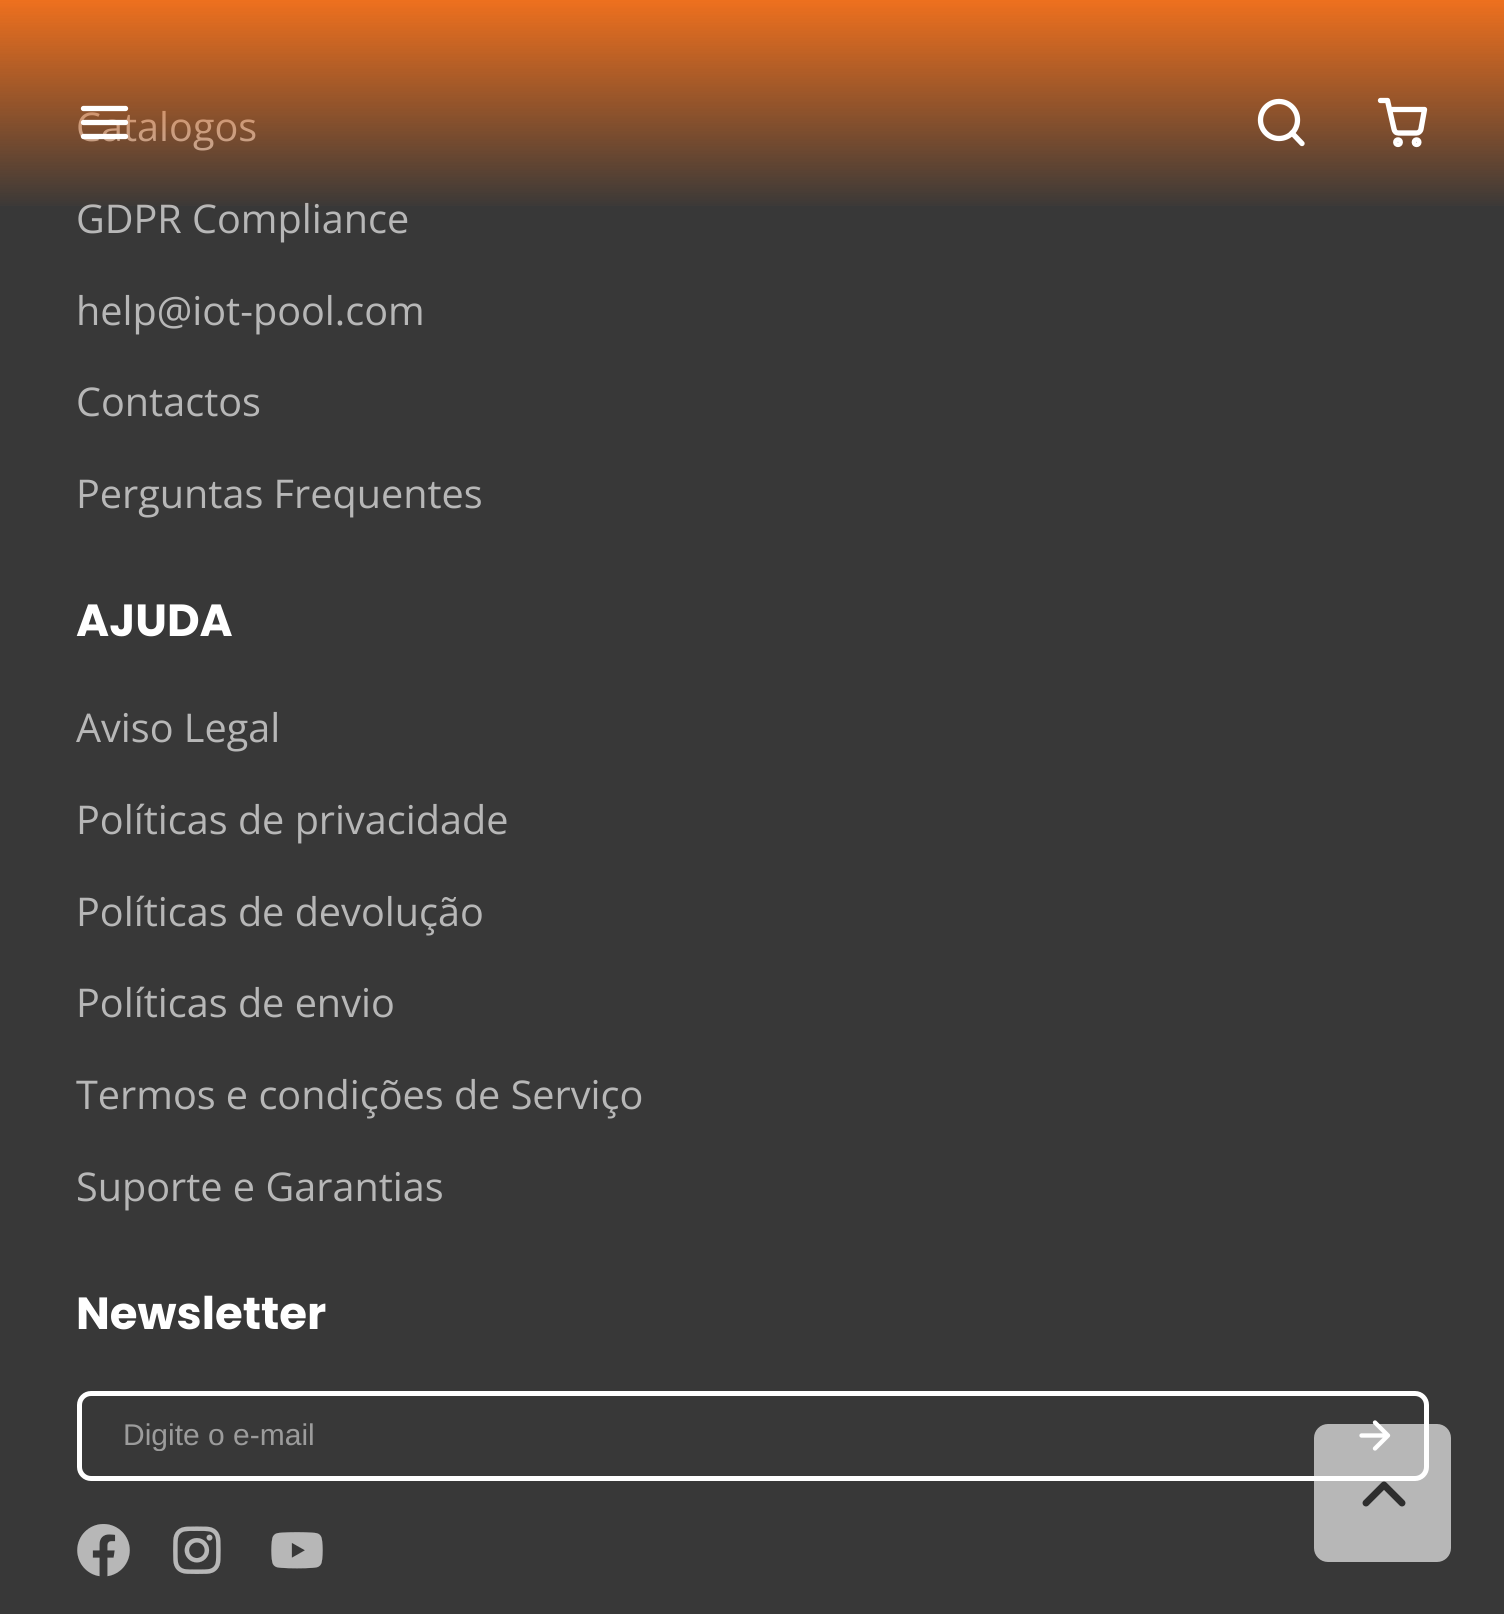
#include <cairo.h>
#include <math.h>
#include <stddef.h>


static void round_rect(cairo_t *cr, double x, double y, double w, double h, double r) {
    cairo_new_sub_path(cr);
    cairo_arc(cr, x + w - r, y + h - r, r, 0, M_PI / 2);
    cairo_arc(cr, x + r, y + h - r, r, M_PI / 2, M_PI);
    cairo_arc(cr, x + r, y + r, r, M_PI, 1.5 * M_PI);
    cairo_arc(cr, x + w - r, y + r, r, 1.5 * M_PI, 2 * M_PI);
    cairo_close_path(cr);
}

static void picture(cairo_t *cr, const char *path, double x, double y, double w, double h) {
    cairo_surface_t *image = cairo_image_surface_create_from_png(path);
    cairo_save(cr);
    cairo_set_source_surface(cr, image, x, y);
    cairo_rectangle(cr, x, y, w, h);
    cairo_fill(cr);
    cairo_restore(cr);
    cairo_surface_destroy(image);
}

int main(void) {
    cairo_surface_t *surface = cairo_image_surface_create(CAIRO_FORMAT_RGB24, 1504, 1614);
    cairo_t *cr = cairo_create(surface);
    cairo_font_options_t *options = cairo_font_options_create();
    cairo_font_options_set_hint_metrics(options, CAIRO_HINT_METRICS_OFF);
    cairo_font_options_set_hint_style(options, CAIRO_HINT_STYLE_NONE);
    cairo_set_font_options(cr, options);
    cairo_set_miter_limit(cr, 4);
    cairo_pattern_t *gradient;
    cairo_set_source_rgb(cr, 0.22, 0.22, 0.22);
    cairo_paint(cr);
    cairo_select_font_face(cr, "Open Sans", CAIRO_FONT_SLANT_NORMAL, CAIRO_FONT_WEIGHT_NORMAL);
    cairo_set_font_size(cr, 39.6);
    cairo_set_source_rgb(cr, 0.718, 0.718, 0.718);
    cairo_move_to(cr, 76, 141);
    cairo_show_text(cr, "Catalogos");
    cairo_move_to(cr, 76, 233);
    cairo_show_text(cr, "GDPR Compliance");
    gradient = cairo_pattern_create_linear(753, 0, 753, 245);
    cairo_pattern_add_color_stop_rgba(gradient, 0, 0.933, 0.439, 0.118, 1);
    cairo_pattern_add_color_stop_rgba(gradient, 0.86, 0.933, 0.439, 0.118, 0);
    cairo_pattern_add_color_stop_rgba(gradient, 1, 1, 1, 1, 0);
    cairo_pattern_add_color_stop_rgba(gradient, 1, 1, 1, 1, 1);
    cairo_set_source(cr, gradient);
    cairo_pattern_destroy(gradient);
    cairo_rectangle(cr, 0, 0, 1504, 206);
    cairo_fill(cr);
    cairo_new_path(cr);
    cairo_move_to(cr, 83.5, 122.5);
    cairo_line_to(cr, 125.5, 122.5);
    cairo_move_to(cr, 83.5, 108.5);
    cairo_line_to(cr, 125.5, 108.5);
    cairo_move_to(cr, 83.5, 136.5);
    cairo_line_to(cr, 125.5, 136.5);
    cairo_set_source_rgb(cr, 1, 1, 1);
    cairo_set_line_width(cr, 5.3);
    cairo_set_line_cap(cr, CAIRO_LINE_CAP_ROUND);
    cairo_set_line_join(cr, CAIRO_LINE_JOIN_ROUND);
    cairo_stroke(cr);
    cairo_arc(cr, 1279, 120, 18.5, 0, 2 * M_PI);
    cairo_set_line_cap(cr, CAIRO_LINE_CAP_BUTT);
    cairo_set_line_join(cr, CAIRO_LINE_JOIN_MITER);
    cairo_stroke(cr);
    cairo_new_path(cr);
    cairo_move_to(cr, 1302, 143.5);
    cairo_line_to(cr, 1292, 133);
    cairo_set_line_cap(cr, CAIRO_LINE_CAP_ROUND);
    cairo_set_line_join(cr, CAIRO_LINE_JOIN_ROUND);
    cairo_stroke(cr);
    cairo_arc(cr, 1398, 142.2, 2.3, 0, 2 * M_PI);
    cairo_set_line_cap(cr, CAIRO_LINE_CAP_BUTT);
    cairo_set_line_join(cr, CAIRO_LINE_JOIN_MITER);
    cairo_stroke(cr);
    cairo_arc(cr, 1416.6, 142.2, 2.3, 0, 2 * M_PI);
    cairo_stroke(cr);
    cairo_new_path(cr);
    cairo_move_to(cr, 1380.5, 100.5);
    cairo_line_to(cr, 1387.5, 100.5);
    cairo_line_to(cr, 1394, 129);
    cairo_curve_to(cr, 1394.5, 131.5, 1396, 133, 1398.5, 133);
    cairo_line_to(cr, 1416.5, 133);
    cairo_curve_to(cr, 1418.5, 133, 1420.5, 131.5, 1421, 129);
    cairo_line_to(cr, 1424.5, 109.5);
    cairo_line_to(cr, 1391.5, 109.5);
    cairo_set_line_cap(cr, CAIRO_LINE_CAP_ROUND);
    cairo_set_line_join(cr, CAIRO_LINE_JOIN_ROUND);
    cairo_stroke(cr);
    cairo_set_source_rgb(cr, 0.718, 0.718, 0.718);
    cairo_move_to(cr, 76, 325);
    cairo_show_text(cr, "help@iot-pool.com");
    cairo_move_to(cr, 76, 416);
    cairo_show_text(cr, "Contactos");
    cairo_move_to(cr, 76, 508);
    cairo_show_text(cr, "Perguntas Frequentes");
    cairo_select_font_face(cr, "Poppins", CAIRO_FONT_SLANT_NORMAL, CAIRO_FONT_WEIGHT_BOLD);
    cairo_set_font_size(cr, 45);
    cairo_set_source_rgb(cr, 1, 1, 1);
    cairo_move_to(cr, 76, 636);
    cairo_show_text(cr, "AJUDA");
    cairo_select_font_face(cr, "Open Sans", CAIRO_FONT_SLANT_NORMAL, CAIRO_FONT_WEIGHT_NORMAL);
    cairo_set_font_size(cr, 39.6);
    cairo_set_source_rgb(cr, 0.718, 0.718, 0.718);
    cairo_move_to(cr, 76, 742);
    cairo_show_text(cr, "Aviso Legal");
    cairo_move_to(cr, 76, 834);
    cairo_show_text(cr, "Políticas de privacidade");
    cairo_move_to(cr, 76, 926);
    cairo_show_text(cr, "Políticas de devolução");
    cairo_move_to(cr, 76, 1017);
    cairo_show_text(cr, "Políticas de envio");
    cairo_move_to(cr, 76, 1109);
    cairo_show_text(cr, "Termos e condições de Serviço");
    cairo_move_to(cr, 76, 1201);
    cairo_show_text(cr, "Suporte e Garantias");
    cairo_select_font_face(cr, "Poppins", CAIRO_FONT_SLANT_NORMAL, CAIRO_FONT_WEIGHT_BOLD);
    cairo_set_font_size(cr, 45);
    cairo_set_source_rgb(cr, 1, 1, 1);
    cairo_move_to(cr, 76, 1329);
    cairo_show_text(cr, "Newsletter");
    round_rect(cr, 79.5, 1393.5, 1347, 85, 11.5);
    cairo_set_line_width(cr, 5);
    cairo_set_line_cap(cr, CAIRO_LINE_CAP_BUTT);
    cairo_set_line_join(cr, CAIRO_LINE_JOIN_MITER);
    cairo_stroke(cr);
    cairo_save(cr);
    cairo_rectangle(cr, 124, 1418, 1258, 33);
    cairo_clip(cr);
    cairo_select_font_face(cr, "Liberation Sans", CAIRO_FONT_SLANT_NORMAL, CAIRO_FONT_WEIGHT_NORMAL);
    cairo_set_font_size(cr, 30);
    cairo_set_source_rgb(cr, 0.612, 0.612, 0.612);
    cairo_move_to(cr, 123, 1445);
    cairo_show_text(cr, "Digite o e-mail");
    cairo_restore(cr);
    cairo_new_path(cr);
    cairo_move_to(cr, 1361.5, 1435.5);
    cairo_line_to(cr, 1386, 1435.5);
    cairo_move_to(cr, 1375, 1422.5);
    cairo_line_to(cr, 1388, 1435.5);
    cairo_line_to(cr, 1375, 1448.5);
    cairo_set_line_width(cr, 4.3);
    cairo_set_line_cap(cr, CAIRO_LINE_CAP_ROUND);
    cairo_set_line_join(cr, CAIRO_LINE_JOIN_ROUND);
    cairo_stroke(cr);
    picture(cr, "img1.png", 77, 1524, 53, 53);
    picture(cr, "img2.png", 173, 1526, 48, 48);
    picture(cr, "img3.png", 271, 1532, 52, 37);
    cairo_set_source_rgba(cr, 1, 1, 1, 0.64);
    round_rect(cr, 1314, 1424, 137, 138, 14);
    cairo_fill(cr);
    cairo_new_path(cr);
    cairo_move_to(cr, 1402, 1503);
    cairo_line_to(cr, 1384, 1485);
    cairo_line_to(cr, 1366, 1503);
    cairo_set_source_rgb(cr, 0.18, 0.18, 0.18);
    cairo_set_line_width(cr, 6.9);
    cairo_stroke(cr);
    cairo_surface_write_to_png(surface, "page.png");
    cairo_font_options_destroy(options);
    cairo_destroy(cr);
    cairo_surface_destroy(surface);
    return 0;
}
